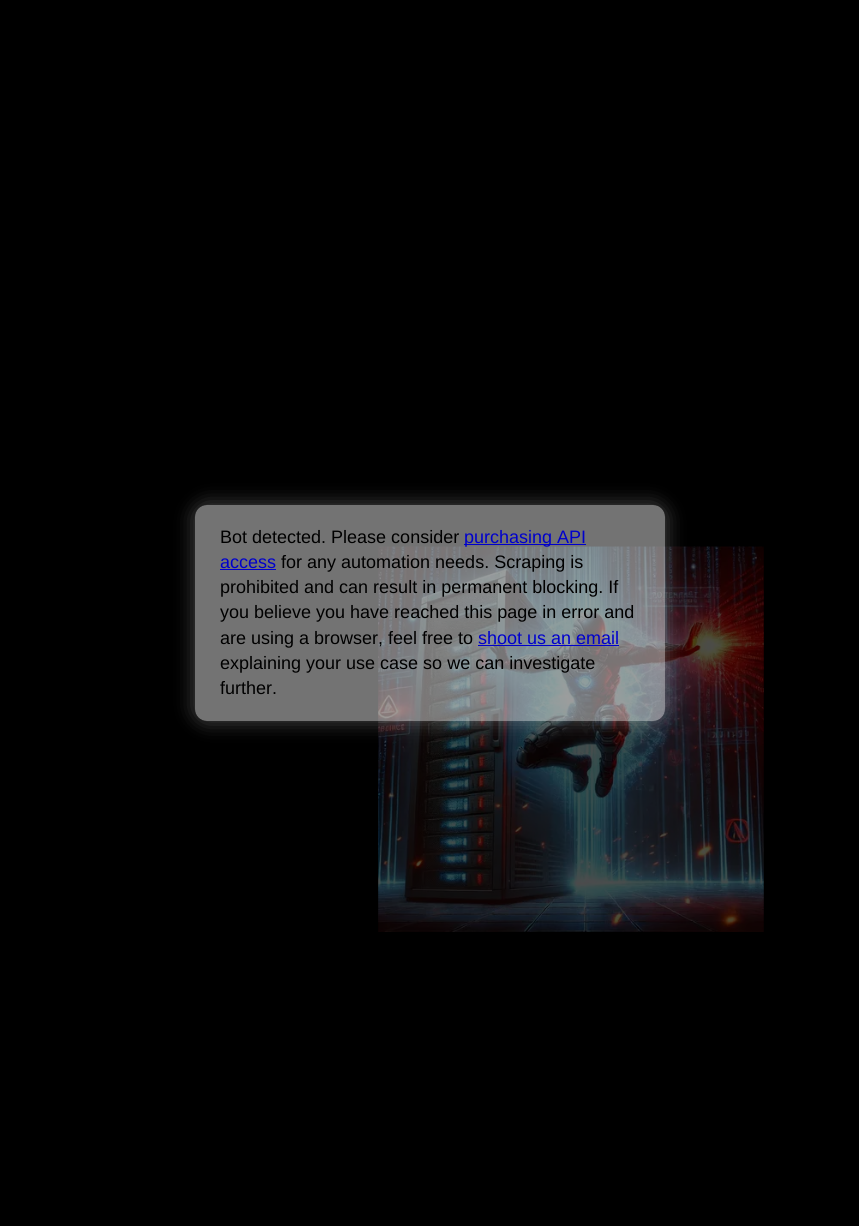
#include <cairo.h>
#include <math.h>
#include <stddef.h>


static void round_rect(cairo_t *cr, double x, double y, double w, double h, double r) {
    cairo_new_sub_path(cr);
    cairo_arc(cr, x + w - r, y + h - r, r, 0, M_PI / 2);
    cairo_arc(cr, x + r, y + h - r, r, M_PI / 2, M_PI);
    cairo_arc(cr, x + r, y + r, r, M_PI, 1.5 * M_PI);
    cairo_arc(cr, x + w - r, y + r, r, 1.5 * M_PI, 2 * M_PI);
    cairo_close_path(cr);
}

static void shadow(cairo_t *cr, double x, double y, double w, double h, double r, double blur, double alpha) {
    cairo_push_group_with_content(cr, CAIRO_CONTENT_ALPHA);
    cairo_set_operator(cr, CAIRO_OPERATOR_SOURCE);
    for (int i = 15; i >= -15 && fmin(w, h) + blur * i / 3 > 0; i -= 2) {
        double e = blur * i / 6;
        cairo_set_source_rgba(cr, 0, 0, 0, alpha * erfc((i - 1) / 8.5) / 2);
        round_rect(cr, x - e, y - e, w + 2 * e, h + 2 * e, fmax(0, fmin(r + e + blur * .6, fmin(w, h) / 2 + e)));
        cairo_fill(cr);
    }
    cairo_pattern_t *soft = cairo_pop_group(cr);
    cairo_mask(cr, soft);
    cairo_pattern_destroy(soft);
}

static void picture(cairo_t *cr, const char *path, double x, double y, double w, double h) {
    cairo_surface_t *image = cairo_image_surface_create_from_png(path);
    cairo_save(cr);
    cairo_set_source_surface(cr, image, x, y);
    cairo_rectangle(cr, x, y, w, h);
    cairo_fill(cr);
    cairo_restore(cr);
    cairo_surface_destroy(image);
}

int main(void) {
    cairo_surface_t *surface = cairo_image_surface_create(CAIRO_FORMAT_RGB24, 859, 1226);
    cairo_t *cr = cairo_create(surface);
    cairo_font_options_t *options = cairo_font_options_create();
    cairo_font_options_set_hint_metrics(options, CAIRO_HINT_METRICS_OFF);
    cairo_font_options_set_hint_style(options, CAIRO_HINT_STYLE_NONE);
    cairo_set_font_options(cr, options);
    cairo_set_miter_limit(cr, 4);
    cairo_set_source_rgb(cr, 0, 0, 0);
    cairo_paint(cr);
    picture(cr, "img1.png", 378, 546, 386, 386);
    cairo_save(cr);
    cairo_set_fill_rule(cr, CAIRO_FILL_RULE_EVEN_ODD);
    cairo_new_path(cr);
    cairo_move_to(cr, 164, 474);
    cairo_line_to(cr, 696, 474);
    cairo_line_to(cr, 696, 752);
    cairo_line_to(cr, 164, 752);
    cairo_close_path(cr);
    cairo_move_to(cr, 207, 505);
    cairo_line_to(cr, 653, 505);
    cairo_curve_to(cr, 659.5, 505, 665, 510.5, 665, 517);
    cairo_line_to(cr, 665, 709);
    cairo_curve_to(cr, 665, 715.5, 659.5, 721, 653, 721);
    cairo_line_to(cr, 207, 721);
    cairo_curve_to(cr, 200.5, 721, 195, 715.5, 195, 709);
    cairo_line_to(cr, 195, 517);
    cairo_curve_to(cr, 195, 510.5, 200.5, 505, 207, 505);
    cairo_close_path(cr);
    cairo_clip(cr);
    cairo_set_source_rgb(cr, 1, 1, 1);
    shadow(cr, 195, 505, 470, 216, 12, 10, 0.3);
    cairo_restore(cr);
    cairo_set_source_rgba(cr, 1, 1, 1, 0.45);
    round_rect(cr, 195, 505, 470, 216, 12);
    cairo_fill(cr);
    cairo_select_font_face(cr, "Liberation Sans", CAIRO_FONT_SLANT_NORMAL, CAIRO_FONT_WEIGHT_NORMAL);
    cairo_set_font_size(cr, 18);
    cairo_set_source_rgb(cr, 0, 0, 0);
    cairo_move_to(cr, 220, 543);
    cairo_show_text(cr, "Bot detected. Please consider");
    cairo_set_source_rgb(cr, 0, 0, 0.8);
    cairo_rectangle(cr, 464, 544, 122, 1);
    cairo_fill(cr);
    cairo_move_to(cr, 464, 543);
    cairo_show_text(cr, "purchasing API");
    cairo_move_to(cr, 220, 568);
    cairo_show_text(cr, "access");
    cairo_rectangle(cr, 220, 569, 56, 1);
    cairo_fill(cr);
    cairo_set_source_rgb(cr, 0, 0, 0);
    cairo_move_to(cr, 281, 568);
    cairo_show_text(cr, "for any automation needs. Scraping is");
    cairo_move_to(cr, 220, 593);
    cairo_show_text(cr, "prohibited and can result in permanent blocking. If");
    cairo_move_to(cr, 220, 618);
    cairo_show_text(cr, "you believe you have reached this page in error and");
    cairo_move_to(cr, 220, 644);
    cairo_show_text(cr, "are using a browser, feel free to");
    cairo_set_source_rgb(cr, 0, 0, 0.8);
    cairo_move_to(cr, 478, 644);
    cairo_show_text(cr, "shoot us an email");
    cairo_rectangle(cr, 478, 645, 141, 1);
    cairo_fill(cr);
    cairo_set_source_rgb(cr, 0, 0, 0);
    cairo_move_to(cr, 220, 669);
    cairo_show_text(cr, "explaining your use case so we can investigate");
    cairo_move_to(cr, 220, 694);
    cairo_show_text(cr, "further.");
    cairo_surface_write_to_png(surface, "page.png");
    cairo_font_options_destroy(options);
    cairo_destroy(cr);
    cairo_surface_destroy(surface);
    return 0;
}
